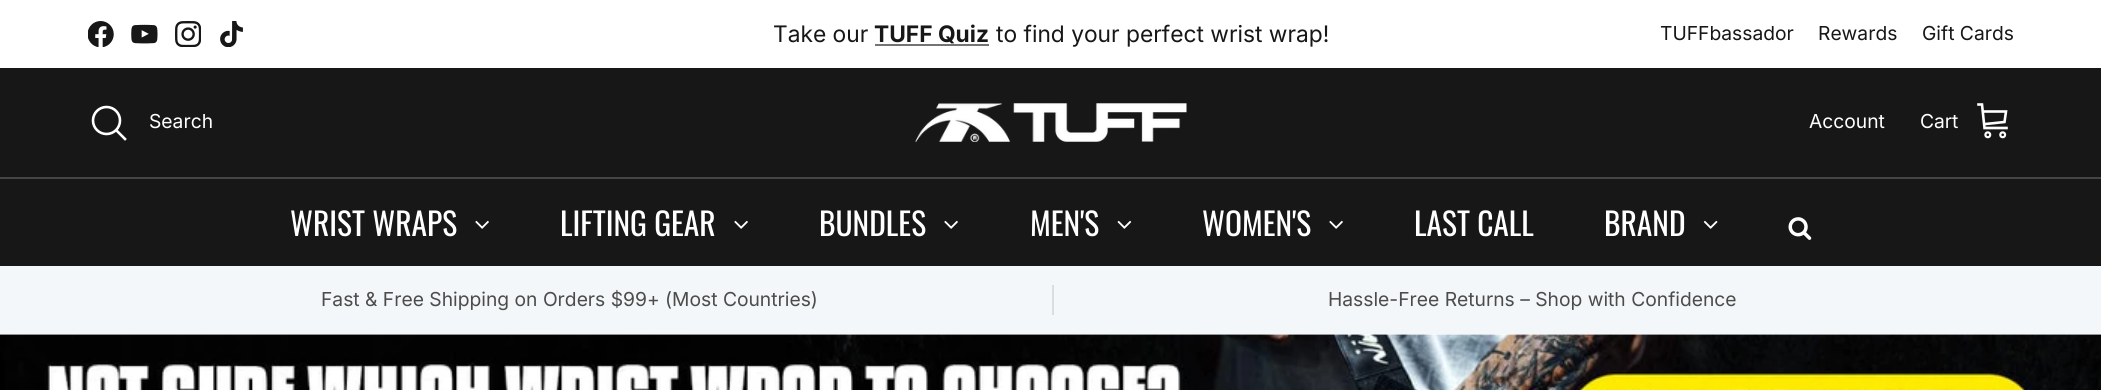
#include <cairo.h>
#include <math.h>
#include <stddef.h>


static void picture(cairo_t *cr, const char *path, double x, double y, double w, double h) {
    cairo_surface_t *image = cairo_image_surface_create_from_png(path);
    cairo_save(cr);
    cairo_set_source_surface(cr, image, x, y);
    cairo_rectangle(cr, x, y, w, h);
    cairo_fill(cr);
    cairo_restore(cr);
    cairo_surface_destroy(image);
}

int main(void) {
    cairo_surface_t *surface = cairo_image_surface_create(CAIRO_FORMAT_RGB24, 2101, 390);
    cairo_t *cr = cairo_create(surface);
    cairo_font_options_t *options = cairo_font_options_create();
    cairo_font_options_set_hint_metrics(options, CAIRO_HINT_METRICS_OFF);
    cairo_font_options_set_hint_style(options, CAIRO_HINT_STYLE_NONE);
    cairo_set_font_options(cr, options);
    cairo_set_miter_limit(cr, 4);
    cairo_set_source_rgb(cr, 1, 1, 1);
    cairo_paint(cr);
    picture(cr, "img1.png", 88, 21, 26, 26);
    picture(cr, "img2.png", 131, 24, 27, 20);
    picture(cr, "img3.png", 175, 21, 26, 26);
    picture(cr, "img4.png", 220, 21, 23, 26);
    cairo_select_font_face(cr, "Inter", CAIRO_FONT_SLANT_NORMAL, CAIRO_FONT_WEIGHT_NORMAL);
    cairo_set_font_size(cr, 22.75);
    cairo_set_source_rgb(cr, 0.09, 0.09, 0.09);
    cairo_move_to(cr, 773, 42);
    cairo_show_text(cr, "Take our");
    cairo_select_font_face(cr, "Inter", CAIRO_FONT_SLANT_NORMAL, CAIRO_FONT_WEIGHT_BOLD);
    cairo_move_to(cr, 874, 42);
    cairo_show_text(cr, "TUFF Quiz");
    cairo_set_source_rgb(cr, 0.455, 0.455, 0.455);
    cairo_rectangle(cr, 875, 44, 114, 2);
    cairo_fill(cr);
    cairo_select_font_face(cr, "Inter", CAIRO_FONT_SLANT_NORMAL, CAIRO_FONT_WEIGHT_NORMAL);
    cairo_set_source_rgb(cr, 0.09, 0.09, 0.09);
    cairo_move_to(cr, 996, 42);
    cairo_show_text(cr, "to find your perfect wrist wrap!");
    cairo_set_font_size(cr, 19.25);
    cairo_move_to(cr, 1660, 40);
    cairo_show_text(cr, "TUFFbassador");
    cairo_move_to(cr, 1818, 40);
    cairo_show_text(cr, "Rewards");
    cairo_move_to(cr, 1922, 40);
    cairo_show_text(cr, "Gift Cards");
    cairo_rectangle(cr, 0, 68, 2101, 109);
    cairo_fill(cr);
    cairo_set_source_rgb(cr, 0.271, 0.271, 0.271);
    cairo_rectangle(cr, 0, 177, 2101, 2);
    cairo_fill(cr);
    cairo_arc(cr, 106.5, 120.5, 13.5, 0, 2 * M_PI);
    cairo_set_source_rgb(cr, 1, 1, 1);
    cairo_set_line_width(cr, 2.6);
    cairo_stroke(cr);
    cairo_move_to(cr, 149, 128);
    cairo_show_text(cr, "Search");
    cairo_new_path(cr);
    cairo_move_to(cr, 117, 131);
    cairo_line_to(cr, 125, 139);
    cairo_set_line_cap(cr, CAIRO_LINE_CAP_SQUARE);
    cairo_stroke(cr);
    picture(cr, "img5.png", 915, 103, 272, 39);
    cairo_move_to(cr, 1809, 128);
    cairo_show_text(cr, "Account");
    cairo_move_to(cr, 1920, 128);
    cairo_show_text(cr, "Cart");
    cairo_new_path(cr);
    cairo_move_to(cr, 1978.5, 104.5);
    cairo_line_to(cr, 1982, 104.5);
    cairo_line_to(cr, 1984.5, 128);
    cairo_line_to(cr, 2006.5, 128);
    cairo_move_to(cr, 1983, 111.5);
    cairo_line_to(cr, 2006, 111.5);
    cairo_line_to(cr, 2004.5, 122);
    cairo_line_to(cr, 1985.5, 124);
    cairo_stroke(cr);
    cairo_arc(cr, 1987.8, 134.8, 2.4, 0, 2 * M_PI);
    cairo_set_line_width(cr, 2.2);
    cairo_set_line_cap(cr, CAIRO_LINE_CAP_BUTT);
    cairo_stroke(cr);
    cairo_arc(cr, 2002.7, 134.8, 2.4, 0, 2 * M_PI);
    cairo_stroke(cr);
    cairo_set_source_rgb(cr, 0.09, 0.09, 0.09);
    cairo_rectangle(cr, 0, 179, 2101, 87);
    cairo_fill(cr);
    cairo_select_font_face(cr, "Oswald", CAIRO_FONT_SLANT_NORMAL, CAIRO_FONT_WEIGHT_NORMAL);
    cairo_set_font_size(cr, 31.5);
    cairo_set_source_rgb(cr, 1, 1, 1);
    cairo_move_to(cr, 290, 236);
    cairo_show_text(cr, "WRIST WRAPS");
    picture(cr, "img6.png", 475, 220, 14, 9);
    cairo_move_to(cr, 560, 236);
    cairo_show_text(cr, "LIFTING GEAR");
    picture(cr, "img6.png", 734, 220, 14, 9);
    cairo_move_to(cr, 819, 236);
    cairo_show_text(cr, "BUNDLES");
    picture(cr, "img6.png", 944, 220, 14, 9);
    cairo_move_to(cr, 1030, 236);
    cairo_show_text(cr, "MEN'S");
    picture(cr, "img7.png", 1117, 220, 15, 9);
    cairo_move_to(cr, 1202, 236);
    cairo_show_text(cr, "WOMEN'S");
    picture(cr, "img6.png", 1329, 220, 14, 9);
    cairo_move_to(cr, 1414, 236);
    cairo_show_text(cr, "LAST CALL");
    cairo_move_to(cr, 1604, 236);
    cairo_show_text(cr, "BRAND");
    picture(cr, "img8.png", 1703, 220, 15, 9);
    picture(cr, "img9.png", 1788, 217, 24, 23);
    cairo_set_source_rgb(cr, 0.957, 0.965, 0.973);
    cairo_rectangle(cr, 0, 266, 2101, 68);
    cairo_fill(cr);
    cairo_select_font_face(cr, "Inter", CAIRO_FONT_SLANT_NORMAL, CAIRO_FONT_WEIGHT_NORMAL);
    cairo_set_font_size(cr, 19.25);
    cairo_set_source_rgb(cr, 0.298, 0.298, 0.294);
    cairo_move_to(cr, 321, 306);
    cairo_show_text(cr, "Fast & Free Shipping on Orders $99+ (Most Countries)");
    cairo_set_source_rgb(cr, 0.859, 0.867, 0.871);
    cairo_rectangle(cr, 1052, 285, 2, 30);
    cairo_fill(cr);
    cairo_set_source_rgb(cr, 0.298, 0.298, 0.294);
    cairo_move_to(cr, 1328, 306);
    cairo_show_text(cr, "Hassle-Free Returns – Shop with Confidence");
    picture(cr, "img10.png", 0, 334, 2101, 56);
    cairo_surface_write_to_png(surface, "page.png");
    cairo_font_options_destroy(options);
    cairo_destroy(cr);
    cairo_surface_destroy(surface);
    return 0;
}
